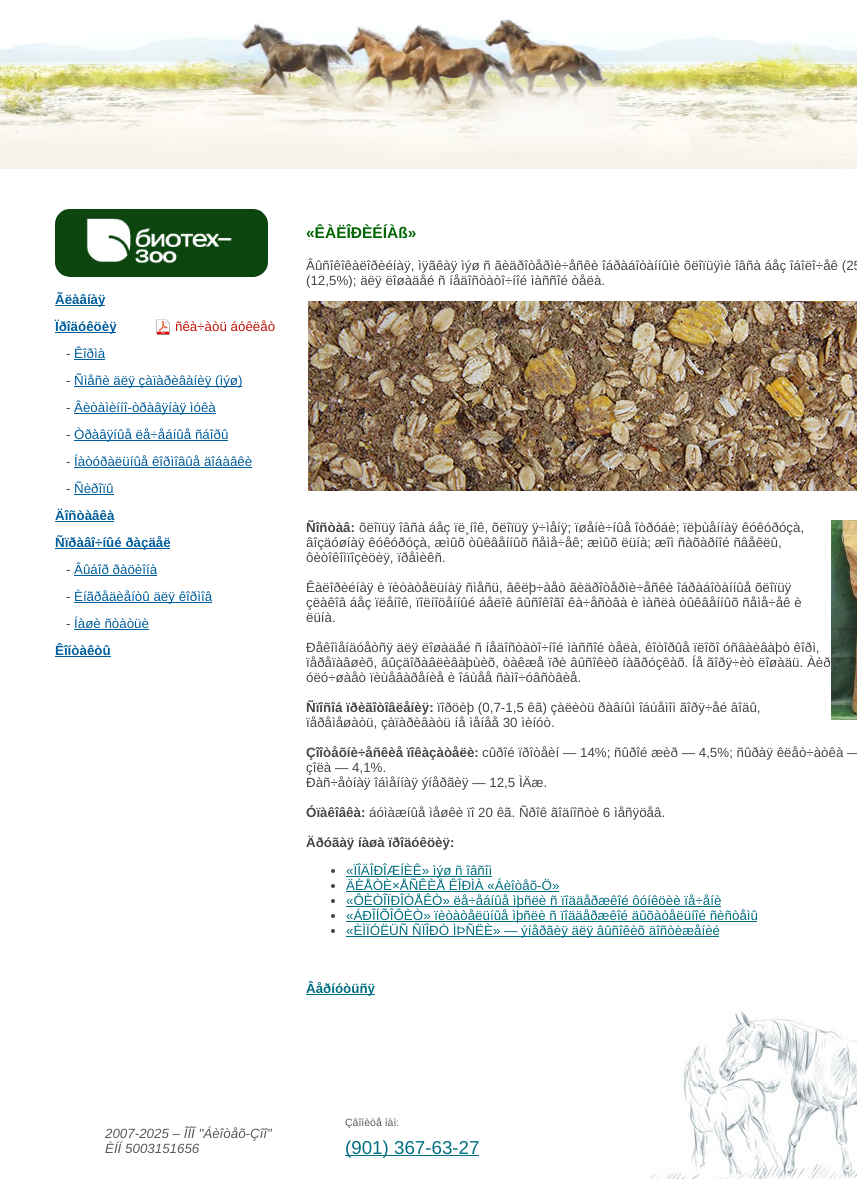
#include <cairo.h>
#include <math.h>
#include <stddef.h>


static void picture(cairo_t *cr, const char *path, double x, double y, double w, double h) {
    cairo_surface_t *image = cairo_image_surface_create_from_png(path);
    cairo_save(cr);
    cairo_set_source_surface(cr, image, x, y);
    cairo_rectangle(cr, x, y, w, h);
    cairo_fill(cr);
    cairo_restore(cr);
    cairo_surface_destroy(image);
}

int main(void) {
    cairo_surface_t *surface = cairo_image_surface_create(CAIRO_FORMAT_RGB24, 857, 1179);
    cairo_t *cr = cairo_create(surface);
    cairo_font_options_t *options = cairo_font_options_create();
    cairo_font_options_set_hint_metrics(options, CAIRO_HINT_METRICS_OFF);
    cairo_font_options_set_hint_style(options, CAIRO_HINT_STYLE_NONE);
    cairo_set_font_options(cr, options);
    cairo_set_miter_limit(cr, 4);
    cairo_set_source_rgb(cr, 1, 1, 1);
    cairo_paint(cr);
    picture(cr, "img1.png", 0, 0, 857, 169);
    picture(cr, "img2.png", 649, 1008, 208, 171);
    picture(cr, "img3.png", 55, 209, 213, 68);
    cairo_set_source_rgb(cr, 0, 0.369, 0.612);
    cairo_rectangle(cr, 55, 305, 50, 1);
    cairo_fill(cr);
    cairo_select_font_face(cr, "Liberation Sans", CAIRO_FONT_SLANT_NORMAL, CAIRO_FONT_WEIGHT_BOLD);
    cairo_set_font_size(cr, 13.35);
    cairo_move_to(cr, 55, 304);
    cairo_show_text(cr, "Ãëàâíàÿ");
    cairo_rectangle(cr, 55, 332, 61, 1);
    cairo_fill(cr);
    cairo_move_to(cr, 55, 331);
    cairo_show_text(cr, "Ïðîäóêöèÿ");
    picture(cr, "img4.png", 156, 319, 14, 16);
    cairo_select_font_face(cr, "Liberation Sans", CAIRO_FONT_SLANT_NORMAL, CAIRO_FONT_WEIGHT_NORMAL);
    cairo_set_source_rgb(cr, 0.757, 0.075, 0.035);
    cairo_move_to(cr, 175, 331);
    cairo_show_text(cr, "ñêà÷àòü áóêëåò");
    cairo_set_source_rgb(cr, 0.275, 0.275, 0.275);
    cairo_move_to(cr, 66, 358);
    cairo_show_text(cr, "-");
    cairo_set_source_rgb(cr, 0, 0.369, 0.612);
    cairo_move_to(cr, 74, 358);
    cairo_show_text(cr, "Êîðìà");
    cairo_rectangle(cr, 74, 359, 31, 1);
    cairo_fill(cr);
    cairo_set_source_rgb(cr, 0.275, 0.275, 0.275);
    cairo_move_to(cr, 66, 385);
    cairo_show_text(cr, "-");
    cairo_set_source_rgb(cr, 0, 0.369, 0.612);
    cairo_rectangle(cr, 74, 386, 168, 1);
    cairo_fill(cr);
    cairo_move_to(cr, 74, 385);
    cairo_show_text(cr, "Ñìåñè äëÿ çàïàðèâàíèÿ (ìýø)");
    cairo_set_source_rgb(cr, 0.275, 0.275, 0.275);
    cairo_move_to(cr, 66, 412);
    cairo_show_text(cr, "-");
    cairo_set_source_rgb(cr, 0, 0.369, 0.612);
    cairo_rectangle(cr, 74, 413, 142, 1);
    cairo_fill(cr);
    cairo_move_to(cr, 74, 412);
    cairo_show_text(cr, "Âèòàìèííî-òðàâÿíàÿ ìóêà");
    cairo_set_source_rgb(cr, 0.275, 0.275, 0.275);
    cairo_move_to(cr, 66, 439);
    cairo_show_text(cr, "-");
    cairo_set_source_rgb(cr, 0, 0.369, 0.612);
    cairo_rectangle(cr, 74, 440, 154, 1);
    cairo_fill(cr);
    cairo_move_to(cr, 74, 439);
    cairo_show_text(cr, "Òðàâÿíûå ëå÷åáíûå ñáîðû");
    cairo_set_source_rgb(cr, 0.275, 0.275, 0.275);
    cairo_move_to(cr, 66, 466);
    cairo_show_text(cr, "-");
    cairo_set_source_rgb(cr, 0, 0.369, 0.612);
    cairo_move_to(cr, 74, 466);
    cairo_show_text(cr, "Íàòóðàëüíûå êîðìîâûå äîáàâêè");
    cairo_rectangle(cr, 74, 467, 178, 1);
    cairo_fill(cr);
    cairo_set_source_rgb(cr, 0.275, 0.275, 0.275);
    cairo_move_to(cr, 66, 493);
    cairo_show_text(cr, "-");
    cairo_set_source_rgb(cr, 0, 0.369, 0.612);
    cairo_move_to(cr, 74, 493);
    cairo_show_text(cr, "Ñèðîïû");
    cairo_rectangle(cr, 74, 494, 40, 1);
    cairo_fill(cr);
    cairo_select_font_face(cr, "Liberation Sans", CAIRO_FONT_SLANT_NORMAL, CAIRO_FONT_WEIGHT_BOLD);
    cairo_move_to(cr, 55, 520);
    cairo_show_text(cr, "Äîñòàâêà");
    cairo_rectangle(cr, 55, 521, 59, 1);
    cairo_fill(cr);
    cairo_rectangle(cr, 55, 548, 115, 1);
    cairo_fill(cr);
    cairo_move_to(cr, 55, 547);
    cairo_show_text(cr, "Ñïðàâî÷íûé ðàçäåë");
    cairo_select_font_face(cr, "Liberation Sans", CAIRO_FONT_SLANT_NORMAL, CAIRO_FONT_WEIGHT_NORMAL);
    cairo_set_source_rgb(cr, 0.275, 0.275, 0.275);
    cairo_move_to(cr, 66, 574);
    cairo_show_text(cr, "-");
    cairo_set_source_rgb(cr, 0, 0.369, 0.612);
    cairo_move_to(cr, 74, 574);
    cairo_show_text(cr, "Âûáîð ðàöèîíà");
    cairo_rectangle(cr, 74, 575, 83, 1);
    cairo_fill(cr);
    cairo_set_source_rgb(cr, 0.275, 0.275, 0.275);
    cairo_move_to(cr, 66, 601);
    cairo_show_text(cr, "-");
    cairo_set_source_rgb(cr, 0, 0.369, 0.612);
    cairo_rectangle(cr, 74, 602, 138, 1);
    cairo_fill(cr);
    cairo_move_to(cr, 74, 601);
    cairo_show_text(cr, "Èíãðåäèåíòû äëÿ êîðìîâ");
    cairo_set_source_rgb(cr, 0.275, 0.275, 0.275);
    cairo_move_to(cr, 66, 628);
    cairo_show_text(cr, "-");
    cairo_set_source_rgb(cr, 0, 0.369, 0.612);
    cairo_move_to(cr, 74, 628);
    cairo_show_text(cr, "Íàøè ñòàòüè");
    cairo_rectangle(cr, 74, 629, 75, 1);
    cairo_fill(cr);
    cairo_select_font_face(cr, "Liberation Sans", CAIRO_FONT_SLANT_NORMAL, CAIRO_FONT_WEIGHT_BOLD);
    cairo_move_to(cr, 55, 655);
    cairo_show_text(cr, "Êîíòàêòû");
    cairo_rectangle(cr, 55, 656, 56, 1);
    cairo_fill(cr);
    cairo_set_font_size(cr, 15.5);
    cairo_set_source_rgb(cr, 0, 0.4, 0);
    cairo_move_to(cr, 306, 238);
    cairo_show_text(cr, "«ÊÀËÎÐÈÉÍÀß»");
    cairo_select_font_face(cr, "Liberation Sans", CAIRO_FONT_SLANT_NORMAL, CAIRO_FONT_WEIGHT_NORMAL);
    cairo_set_font_size(cr, 13.35);
    cairo_set_source_rgb(cr, 0.275, 0.275, 0.275);
    cairo_move_to(cr, 306, 270);
    cairo_show_text(cr, "Âûñîêîêàëîðèéíàÿ, ìÿãêàÿ ìýø ñ ãèäðîòåðìè÷åñêè îáðàáîòàííûìè õëîïüÿìè îâñà áåç îáîëî÷åê (25");
    cairo_move_to(cr, 306, 285);
    cairo_show_text(cr, "(12,5%); äëÿ ëîøàäåé ñ íåäîñòàòî÷íîé ìàññîé òåëà.");
    picture(cr, "img5.png", 308, 301, 549, 190);
    cairo_select_font_face(cr, "Liberation Sans", CAIRO_FONT_SLANT_NORMAL, CAIRO_FONT_WEIGHT_BOLD);
    cairo_move_to(cr, 306, 532);
    cairo_show_text(cr, "Ñîñòàâ:");
    cairo_select_font_face(cr, "Liberation Sans", CAIRO_FONT_SLANT_NORMAL, CAIRO_FONT_WEIGHT_NORMAL);
    cairo_move_to(cr, 359, 532);
    cairo_show_text(cr, "õëîïüÿ îâñà áåç ïë¸íîê, õëîïüÿ ÿ÷ìåíÿ; ïøåíè÷íûå îòðóáè; ïëþùåííàÿ êóêóðóçà,");
    picture(cr, "img6.png", 831, 520, 26, 200);
    cairo_move_to(cr, 306, 547);
    cairo_show_text(cr, "âîçäóøíàÿ êóêóðóçà, æìûõ òûêâåííûõ ñåìå÷åê; æìûõ ëüíà; æîì ñàõàðíîé ñâåêëû,");
    cairo_move_to(cr, 306, 562);
    cairo_show_text(cr, "ôèòîêîìïîçèöèÿ, ïðåìèêñ.");
    cairo_move_to(cr, 306, 592);
    cairo_show_text(cr, "Êàëîðèéíàÿ è ïèòàòåëüíàÿ ñìåñü, âêëþ÷àåò ãèäðîòåðìè÷åñêè îáðàáîòàííûå õëîïüÿ");
    cairo_move_to(cr, 306, 607);
    cairo_show_text(cr, "çëàêîâ áåç ïëåíîê, ïîëíîöåííûé áåëîê âûñîêîãî êà÷åñòâà è ìàñëà òûêâåííûõ ñåìå÷åê è");
    cairo_move_to(cr, 306, 622);
    cairo_show_text(cr, "ëüíà.");
    cairo_move_to(cr, 306, 652);
    cairo_show_text(cr, "Ðåêîìåíäóåòñÿ äëÿ ëîøàäåé ñ íåäîñòàòî÷íîé ìàññîé òåëà, êîòîðûå ïëîõî óñâàèâàþò êîðì,");
    cairo_move_to(cr, 306, 667);
    cairo_show_text(cr, "ïåðåïàâøèõ, âûçäîðàâëèâàþùèõ, òàêæå ïðè âûñîêèõ íàãðóçêàõ. Íå ãîðÿ÷èò ëîøàäü. Àèð");
    cairo_move_to(cr, 306, 682);
    cairo_show_text(cr, "óëó÷øàåò ïèùåâàðåíèå è îáùåå ñàìî÷óâñòâèå.");
    cairo_select_font_face(cr, "Liberation Sans", CAIRO_FONT_SLANT_NORMAL, CAIRO_FONT_WEIGHT_BOLD);
    cairo_move_to(cr, 306, 712);
    cairo_show_text(cr, "Ñïîñîá ïðèãîòîâëåíèÿ:");
    cairo_select_font_face(cr, "Liberation Sans", CAIRO_FONT_SLANT_NORMAL, CAIRO_FONT_WEIGHT_NORMAL);
    cairo_move_to(cr, 437, 712);
    cairo_show_text(cr, "ïîðöèþ (0,7-1,5 êã) çàëèòü ðàâíûì îáúåìîì ãîðÿ÷åé âîäû,");
    cairo_move_to(cr, 306, 727);
    cairo_show_text(cr, "ïåðåìåøàòü, çàïàðèâàòü íå ìåíåå 30 ìèíóò.");
    cairo_select_font_face(cr, "Liberation Sans", CAIRO_FONT_SLANT_NORMAL, CAIRO_FONT_WEIGHT_BOLD);
    cairo_move_to(cr, 306, 757);
    cairo_show_text(cr, "Çîîòåõíè÷åñêèå ïîêàçàòåëè:");
    cairo_select_font_face(cr, "Liberation Sans", CAIRO_FONT_SLANT_NORMAL, CAIRO_FONT_WEIGHT_NORMAL);
    cairo_move_to(cr, 482, 757);
    cairo_show_text(cr, "cûðîé ïðîòåèí — 14%; ñûðîé æèð — 4,5%; ñûðàÿ êëåò÷àòêà —");
    cairo_move_to(cr, 306, 772);
    cairo_show_text(cr, "çîëà — 4,1%.");
    cairo_move_to(cr, 306, 787);
    cairo_show_text(cr, "Ðàñ÷åòíàÿ îáìåííàÿ ýíåðãèÿ — 12,5 ÌÄæ.");
    cairo_select_font_face(cr, "Liberation Sans", CAIRO_FONT_SLANT_NORMAL, CAIRO_FONT_WEIGHT_BOLD);
    cairo_move_to(cr, 306, 817);
    cairo_show_text(cr, "Óïàêîâêà:");
    cairo_select_font_face(cr, "Liberation Sans", CAIRO_FONT_SLANT_NORMAL, CAIRO_FONT_WEIGHT_NORMAL);
    cairo_move_to(cr, 369, 817);
    cairo_show_text(cr, "áóìàæíûå ìåøêè ïî 20 êã. Ñðîê ãîäíîñòè 6 ìåñÿöåâ.");
    cairo_select_font_face(cr, "Liberation Sans", CAIRO_FONT_SLANT_NORMAL, CAIRO_FONT_WEIGHT_BOLD);
    cairo_move_to(cr, 306, 847);
    cairo_show_text(cr, "Äðóãàÿ íàøà ïðîäóêöèÿ:");
    cairo_new_path(cr);
    cairo_arc(cr, 333, 871, 2, 0, 2 * M_PI);
    cairo_fill(cr);
    cairo_set_source_rgb(cr, 0.004, 0.431, 0.506);
    cairo_rectangle(cr, 346, 876, 146, 1);
    cairo_fill(cr);
    cairo_select_font_face(cr, "Liberation Sans", CAIRO_FONT_SLANT_NORMAL, CAIRO_FONT_WEIGHT_NORMAL);
    cairo_move_to(cr, 346, 875);
    cairo_show_text(cr, "«ÏÎÄÎÐÎÆÍÈÊ» ìýø ñ îâñîì");
    cairo_set_source_rgb(cr, 0.275, 0.275, 0.275);
    cairo_new_path(cr);
    cairo_arc(cr, 333, 886, 2, 0, 2 * M_PI);
    cairo_fill(cr);
    cairo_set_source_rgb(cr, 0.004, 0.431, 0.506);
    cairo_move_to(cr, 346, 890);
    cairo_show_text(cr, "ÄÈÅÒÈ×ÅÑÊÈÅ ÊÎÐÌÀ «Áèîòåõ-Ö»");
    cairo_rectangle(cr, 346, 891, 213, 1);
    cairo_fill(cr);
    cairo_set_source_rgb(cr, 0.275, 0.275, 0.275);
    cairo_arc(cr, 333, 901, 2, 0, 2 * M_PI);
    cairo_fill(cr);
    cairo_set_source_rgb(cr, 0.004, 0.431, 0.506);
    cairo_rectangle(cr, 346, 906, 375, 1);
    cairo_fill(cr);
    cairo_move_to(cr, 346, 905);
    cairo_show_text(cr, "«ÔÈÒÎÏÐÎÒÅÊÒ» ëå÷åáíûå ìþñëè ñ ïîääåðæêîé ôóíêöèè ïå÷åíè");
    cairo_set_source_rgb(cr, 0.275, 0.275, 0.275);
    cairo_new_path(cr);
    cairo_arc(cr, 333, 916, 2, 0, 2 * M_PI);
    cairo_fill(cr);
    cairo_set_source_rgb(cr, 0.004, 0.431, 0.506);
    cairo_rectangle(cr, 346, 921, 411, 1);
    cairo_fill(cr);
    cairo_move_to(cr, 346, 920);
    cairo_show_text(cr, "«ÁÐÎÍÕÎÔÈÒ» ïèòàòåëüíûå ìþñëè ñ ïîääåðæêîé äûõàòåëüíîé ñèñòåìû");
    cairo_set_source_rgb(cr, 0.275, 0.275, 0.275);
    cairo_new_path(cr);
    cairo_arc(cr, 333, 931, 2, 0, 2 * M_PI);
    cairo_fill(cr);
    cairo_set_source_rgb(cr, 0.004, 0.431, 0.506);
    cairo_rectangle(cr, 346, 936, 373, 1);
    cairo_fill(cr);
    cairo_move_to(cr, 346, 935);
    cairo_show_text(cr, "«ÈÌÏÓËÜÑ ÑÏÎÐÒ ÌÞÑËÈ» — ýíåðãèÿ äëÿ âûñîêèõ äîñòèæåíèé");
    cairo_rectangle(cr, 306, 994, 69, 1);
    cairo_fill(cr);
    cairo_select_font_face(cr, "Liberation Sans", CAIRO_FONT_SLANT_NORMAL, CAIRO_FONT_WEIGHT_BOLD);
    cairo_move_to(cr, 306, 993);
    cairo_show_text(cr, "Âåðíóòüñÿ");
    cairo_select_font_face(cr, "Liberation Sans", CAIRO_FONT_SLANT_ITALIC, CAIRO_FONT_WEIGHT_NORMAL);
    cairo_set_source_rgb(cr, 0.349, 0.349, 0.349);
    cairo_move_to(cr, 105, 1138);
    cairo_show_text(cr, "2007-2025 – ÎÎÎ \"Áèîòåõ-Çîî\"");
    cairo_move_to(cr, 105, 1153);
    cairo_show_text(cr, "ÈÍÍ 5003151656");
    cairo_select_font_face(cr, "Liberation Sans", CAIRO_FONT_SLANT_NORMAL, CAIRO_FONT_WEIGHT_NORMAL);
    cairo_set_font_size(cr, 10.5);
    cairo_move_to(cr, 345, 1126);
    cairo_show_text(cr, "Çâîíèòå íàì:");
    cairo_set_source_rgb(cr, 0.004, 0.431, 0.506);
    cairo_rectangle(cr, 345, 1155, 134, 1);
    cairo_fill(cr);
    cairo_set_font_size(cr, 18.75);
    cairo_move_to(cr, 345, 1154);
    cairo_show_text(cr, "(901) 367-63-27");
    cairo_surface_write_to_png(surface, "page.png");
    cairo_font_options_destroy(options);
    cairo_destroy(cr);
    cairo_surface_destroy(surface);
    return 0;
}
